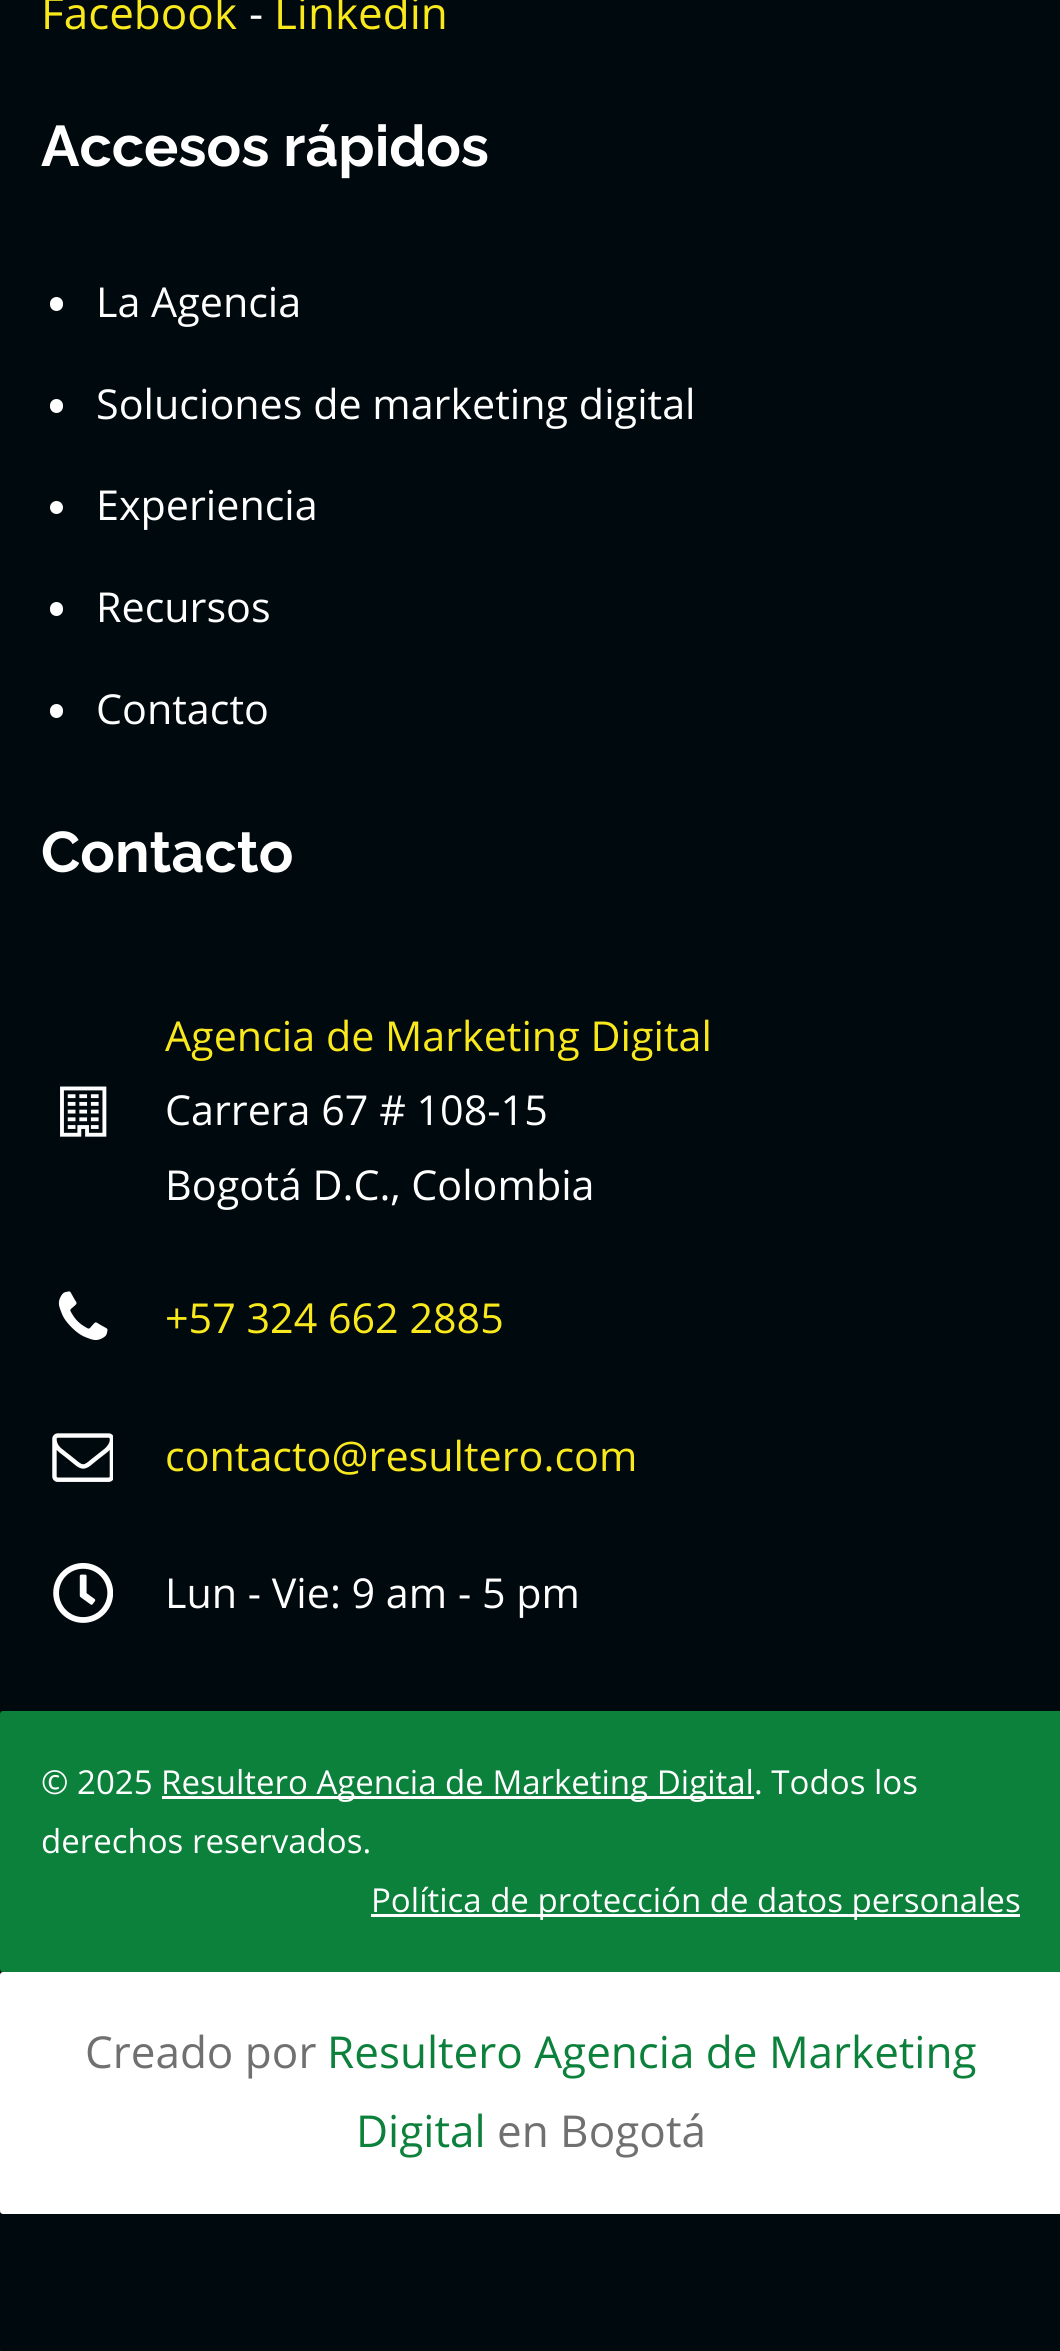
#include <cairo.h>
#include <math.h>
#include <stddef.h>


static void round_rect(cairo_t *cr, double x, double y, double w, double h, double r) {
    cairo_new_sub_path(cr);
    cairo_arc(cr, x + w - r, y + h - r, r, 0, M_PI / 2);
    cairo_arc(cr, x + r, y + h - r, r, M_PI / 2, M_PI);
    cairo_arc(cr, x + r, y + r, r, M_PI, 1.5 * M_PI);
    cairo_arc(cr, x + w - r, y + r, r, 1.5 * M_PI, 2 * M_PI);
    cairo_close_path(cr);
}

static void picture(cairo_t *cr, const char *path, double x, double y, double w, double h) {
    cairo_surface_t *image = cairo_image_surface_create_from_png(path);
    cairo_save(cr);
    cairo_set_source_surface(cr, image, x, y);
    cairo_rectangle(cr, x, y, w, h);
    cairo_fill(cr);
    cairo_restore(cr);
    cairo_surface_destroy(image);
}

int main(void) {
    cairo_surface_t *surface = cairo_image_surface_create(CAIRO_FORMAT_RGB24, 1060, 2351);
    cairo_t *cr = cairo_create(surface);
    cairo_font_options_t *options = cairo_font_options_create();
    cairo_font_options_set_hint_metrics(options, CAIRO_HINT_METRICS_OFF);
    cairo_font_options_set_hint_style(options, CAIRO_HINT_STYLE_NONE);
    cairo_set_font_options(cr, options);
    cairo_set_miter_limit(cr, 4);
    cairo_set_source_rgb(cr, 0.004, 0.098, 0.129);
    cairo_paint(cr);
    cairo_set_source_rgb(cr, 0, 0.039, 0.051);
    round_rect(cr, 0, -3, 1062, 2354, 3);
    cairo_fill(cr);
    cairo_select_font_face(cr, "Open Sans", CAIRO_FONT_SLANT_NORMAL, CAIRO_FONT_WEIGHT_NORMAL);
    cairo_set_font_size(cr, 44);
    cairo_set_source_rgb(cr, 0.973, 0.91, 0.11);
    cairo_move_to(cr, 41, 29);
    cairo_show_text(cr, "Facebook");
    cairo_set_source_rgb(cr, 1, 1, 1);
    cairo_move_to(cr, 249, 29);
    cairo_show_text(cr, "-");
    cairo_set_source_rgb(cr, 0.973, 0.91, 0.11);
    cairo_move_to(cr, 274, 29);
    cairo_show_text(cr, "Linkedin");
    cairo_select_font_face(cr, "Raleway", CAIRO_FONT_SLANT_NORMAL, CAIRO_FONT_WEIGHT_BOLD);
    cairo_set_font_size(cr, 57.25);
    cairo_set_source_rgb(cr, 1, 1, 1);
    cairo_move_to(cr, 41, 166);
    cairo_show_text(cr, "Accesos rápidos");
    round_rect(cr, 50, 297, 13, 14, 6.5);
    cairo_fill(cr);
    cairo_select_font_face(cr, "Open Sans", CAIRO_FONT_SLANT_NORMAL, CAIRO_FONT_WEIGHT_NORMAL);
    cairo_set_font_size(cr, 41.25);
    cairo_move_to(cr, 96, 317);
    cairo_show_text(cr, "La Agencia");
    round_rect(cr, 50, 399, 13, 14, 6.5);
    cairo_fill(cr);
    cairo_move_to(cr, 96, 419);
    cairo_show_text(cr, "Soluciones de marketing digital");
    cairo_new_path(cr);
    cairo_arc(cr, 56.5, 507.5, 6.5, 0, 2 * M_PI);
    cairo_fill(cr);
    cairo_move_to(cr, 96, 520);
    cairo_show_text(cr, "Experiencia");
    round_rect(cr, 50, 602, 13, 14, 6.5);
    cairo_fill(cr);
    cairo_move_to(cr, 96, 622);
    cairo_show_text(cr, "Recursos");
    round_rect(cr, 50, 704, 13, 14, 6.5);
    cairo_fill(cr);
    cairo_move_to(cr, 96, 724);
    cairo_show_text(cr, "Contacto");
    cairo_select_font_face(cr, "Raleway", CAIRO_FONT_SLANT_NORMAL, CAIRO_FONT_WEIGHT_BOLD);
    cairo_set_font_size(cr, 57.25);
    cairo_move_to(cr, 41, 872);
    cairo_show_text(cr, "Contacto");
    picture(cr, "img1.png", 60, 1086, 47, 51);
    cairo_select_font_face(cr, "Open Sans", CAIRO_FONT_SLANT_NORMAL, CAIRO_FONT_WEIGHT_NORMAL);
    cairo_set_font_size(cr, 41.25);
    cairo_set_source_rgb(cr, 0.973, 0.91, 0.11);
    cairo_move_to(cr, 165, 1051);
    cairo_show_text(cr, "Agencia de Marketing Digital");
    cairo_set_source_rgb(cr, 1, 1, 1);
    cairo_move_to(cr, 165, 1125);
    cairo_show_text(cr, "Carrera 67 # 108-15");
    cairo_move_to(cr, 165, 1200);
    cairo_show_text(cr, "Bogotá D.C., Colombia");
    picture(cr, "img2.png", 58, 1291, 50, 49);
    cairo_set_source_rgb(cr, 0.973, 0.91, 0.11);
    cairo_move_to(cr, 165, 1333);
    cairo_show_text(cr, "+57 324 662 2885");
    picture(cr, "img3.png", 52, 1433, 61, 49);
    cairo_move_to(cr, 165, 1471);
    cairo_show_text(cr, "contacto@resultero.com");
    picture(cr, "img4.png", 53, 1563, 60, 60);
    cairo_set_source_rgb(cr, 1, 1, 1);
    cairo_move_to(cr, 165, 1608);
    cairo_show_text(cr, "Lun - Vie: 9 am - 5 pm");
    cairo_set_source_rgb(cr, 0.047, 0.506, 0.231);
    round_rect(cr, 0, 1711, 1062, 261, 3);
    cairo_fill(cr);
    cairo_set_font_size(cr, 33);
    cairo_set_source_rgb(cr, 1, 1, 1);
    cairo_move_to(cr, 41, 1794);
    cairo_show_text(cr, "© 2025");
    cairo_rectangle(cr, 162, 1796, 592, 3);
    cairo_fill(cr);
    cairo_move_to(cr, 161, 1794);
    cairo_show_text(cr, "Resultero Agencia de Marketing Digital. Todos los");
    cairo_move_to(cr, 41, 1853);
    cairo_show_text(cr, "derechos reservados.");
    cairo_rectangle(cr, 371, 1914, 649, 3);
    cairo_fill(cr);
    cairo_move_to(cr, 371, 1912);
    cairo_show_text(cr, "Política de protección de datos personales");
    round_rect(cr, 0, 1972, 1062, 242, 3);
    cairo_fill(cr);
    cairo_set_font_size(cr, 44);
    cairo_set_source_rgb(cr, 0.439, 0.439, 0.439);
    cairo_move_to(cr, 85, 2068);
    cairo_show_text(cr, "Creado por");
    cairo_set_source_rgb(cr, 0.047, 0.506, 0.231);
    cairo_move_to(cr, 327, 2068);
    cairo_show_text(cr, "Resultero Agencia de Marketing");
    cairo_move_to(cr, 356, 2147);
    cairo_show_text(cr, "Digital");
    cairo_set_source_rgb(cr, 0.439, 0.439, 0.439);
    cairo_move_to(cr, 497, 2147);
    cairo_show_text(cr, "en Bogotá");
    cairo_surface_write_to_png(surface, "page.png");
    cairo_font_options_destroy(options);
    cairo_destroy(cr);
    cairo_surface_destroy(surface);
    return 0;
}
